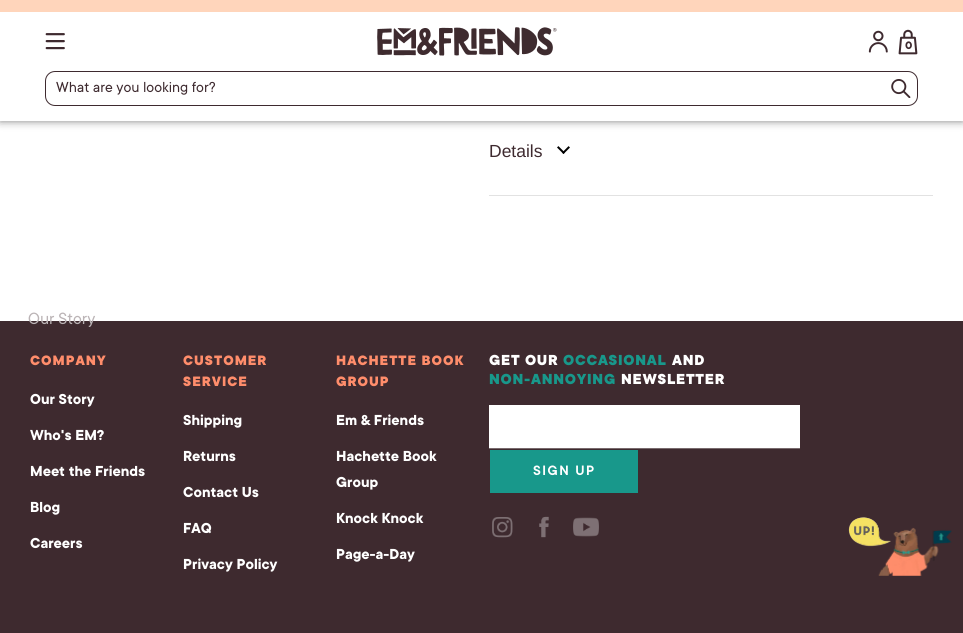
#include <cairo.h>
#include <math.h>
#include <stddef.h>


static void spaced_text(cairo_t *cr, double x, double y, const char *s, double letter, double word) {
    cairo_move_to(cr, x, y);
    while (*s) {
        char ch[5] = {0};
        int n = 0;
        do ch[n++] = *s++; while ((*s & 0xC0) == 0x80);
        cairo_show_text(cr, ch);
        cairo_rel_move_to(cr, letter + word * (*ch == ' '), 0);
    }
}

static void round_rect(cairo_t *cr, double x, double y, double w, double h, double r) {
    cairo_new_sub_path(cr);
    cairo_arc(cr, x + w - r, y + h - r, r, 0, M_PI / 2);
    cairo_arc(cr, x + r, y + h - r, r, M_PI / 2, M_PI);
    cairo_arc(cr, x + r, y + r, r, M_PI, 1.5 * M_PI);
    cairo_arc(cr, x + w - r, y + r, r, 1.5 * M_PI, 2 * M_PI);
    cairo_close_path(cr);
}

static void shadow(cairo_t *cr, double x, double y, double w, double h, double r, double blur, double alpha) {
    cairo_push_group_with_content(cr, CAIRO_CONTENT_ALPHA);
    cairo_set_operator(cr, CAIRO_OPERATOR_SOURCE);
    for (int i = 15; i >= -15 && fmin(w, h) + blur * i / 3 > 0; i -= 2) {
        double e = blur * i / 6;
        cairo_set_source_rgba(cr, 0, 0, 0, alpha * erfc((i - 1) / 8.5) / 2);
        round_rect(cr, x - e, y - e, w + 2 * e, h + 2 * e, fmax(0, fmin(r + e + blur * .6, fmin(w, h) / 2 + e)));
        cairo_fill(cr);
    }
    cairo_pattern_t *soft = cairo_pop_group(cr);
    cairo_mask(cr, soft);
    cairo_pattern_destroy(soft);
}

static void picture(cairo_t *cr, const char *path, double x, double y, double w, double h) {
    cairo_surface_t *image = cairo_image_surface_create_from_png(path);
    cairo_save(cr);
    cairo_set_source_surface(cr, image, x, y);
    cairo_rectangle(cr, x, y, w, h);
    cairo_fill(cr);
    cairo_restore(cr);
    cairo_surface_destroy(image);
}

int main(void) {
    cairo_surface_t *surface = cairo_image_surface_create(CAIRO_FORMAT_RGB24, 963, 633);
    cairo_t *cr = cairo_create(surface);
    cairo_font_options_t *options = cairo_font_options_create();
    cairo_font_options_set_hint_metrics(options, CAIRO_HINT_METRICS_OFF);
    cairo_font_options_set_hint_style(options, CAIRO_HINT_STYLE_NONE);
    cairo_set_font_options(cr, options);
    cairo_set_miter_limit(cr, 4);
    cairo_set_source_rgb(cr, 1, 1, 1);
    cairo_paint(cr);
    cairo_set_source_rgb(cr, 0, 0, 0);
    shadow(cr, 0, -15, 963, 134, 0, 5, 0.75);
    cairo_set_source_rgb(cr, 1, 1, 1);
    cairo_rectangle(cr, 0, 12, 963, 109);
    cairo_fill(cr);
    cairo_set_source_rgb(cr, 1, 0.835, 0.733);
    cairo_rectangle(cr, 0, 0, 963, 12);
    cairo_fill(cr);
    picture(cr, "img1.png", 45, 33, 20, 17);
    picture(cr, "img2.png", 377, 27, 180, 29);
    picture(cr, "img3.png", 868, 30, 20, 23);
    picture(cr, "img4.png", 898, 29, 20, 26);
    cairo_select_font_face(cr, "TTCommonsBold", CAIRO_FONT_SLANT_NORMAL, CAIRO_FONT_WEIGHT_BOLD);
    cairo_set_font_size(cr, 12);
    cairo_set_source_rgb(cr, 0.243, 0.165, 0.184);
    cairo_move_to(cr, 905, 49);
    cairo_show_text(cr, "0");
    round_rect(cr, 45.5, 71.5, 872, 34, 9.5);
    cairo_set_line_width(cr, 1);
    cairo_stroke(cr);
    cairo_select_font_face(cr, "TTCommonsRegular", CAIRO_FONT_SLANT_NORMAL, CAIRO_FONT_WEIGHT_NORMAL);
    cairo_set_font_size(cr, 16);
    cairo_move_to(cr, 56, 92);
    cairo_show_text(cr, "What are you looking for?");
    picture(cr, "img5.png", 891, 79, 20, 19);
    cairo_select_font_face(cr, "Liberation Sans", CAIRO_FONT_SLANT_NORMAL, CAIRO_FONT_WEIGHT_NORMAL);
    cairo_set_font_size(cr, 17.5);
    cairo_move_to(cr, 489, 157);
    cairo_show_text(cr, "Details");
    picture(cr, "img6.png", 557, 146, 13, 8);
    cairo_set_source_rgb(cr, 0.886, 0.886, 0.886);
    cairo_rectangle(cr, 489, 195, 444, 1);
    cairo_fill(cr);
    cairo_set_source_rgb(cr, 0.243, 0.165, 0.184);
    cairo_rectangle(cr, 0, 321, 963, 312);
    cairo_fill(cr);
    cairo_select_font_face(cr, "TTCommonsRegular", CAIRO_FONT_SLANT_NORMAL, CAIRO_FONT_WEIGHT_NORMAL);
    cairo_set_font_size(cr, 18);
    cairo_set_source_rgb(cr, 0.733, 0.706, 0.714);
    cairo_move_to(cr, 28, 324);
    cairo_show_text(cr, "Our Story");
    cairo_select_font_face(cr, "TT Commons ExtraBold", CAIRO_FONT_SLANT_NORMAL, CAIRO_FONT_WEIGHT_NORMAL);
    cairo_set_font_size(cr, 15);
    cairo_set_source_rgb(cr, 1, 0.553, 0.42);
    spaced_text(cr, 30, 365, "COMPANY", 1, 0);
    cairo_select_font_face(cr, "TTCommonsBold", CAIRO_FONT_SLANT_NORMAL, CAIRO_FONT_WEIGHT_BOLD);
    cairo_set_font_size(cr, 16);
    cairo_set_source_rgb(cr, 1, 1, 1);
    cairo_move_to(cr, 30, 404);
    cairo_show_text(cr, "Our Story");
    cairo_move_to(cr, 30, 440);
    cairo_show_text(cr, "Who's EM?");
    cairo_move_to(cr, 30, 476);
    cairo_show_text(cr, "Meet the Friends");
    cairo_move_to(cr, 30, 512);
    cairo_show_text(cr, "Blog");
    cairo_move_to(cr, 30, 548);
    cairo_show_text(cr, "Careers");
    cairo_select_font_face(cr, "TT Commons ExtraBold", CAIRO_FONT_SLANT_NORMAL, CAIRO_FONT_WEIGHT_NORMAL);
    cairo_set_font_size(cr, 15);
    cairo_set_source_rgb(cr, 1, 0.553, 0.42);
    spaced_text(cr, 183, 365, "CUSTOMER", 1, 0);
    spaced_text(cr, 183, 386, "SERVICE", 1, 0);
    cairo_select_font_face(cr, "TTCommonsBold", CAIRO_FONT_SLANT_NORMAL, CAIRO_FONT_WEIGHT_BOLD);
    cairo_set_font_size(cr, 16);
    cairo_set_source_rgb(cr, 1, 1, 1);
    cairo_move_to(cr, 183, 425);
    cairo_show_text(cr, "Shipping");
    cairo_move_to(cr, 183, 461);
    cairo_show_text(cr, "Returns");
    cairo_move_to(cr, 183, 497);
    cairo_show_text(cr, "Contact Us");
    cairo_move_to(cr, 183, 533);
    cairo_show_text(cr, "FAQ");
    cairo_move_to(cr, 183, 569);
    cairo_show_text(cr, "Privacy Policy");
    cairo_select_font_face(cr, "TT Commons ExtraBold", CAIRO_FONT_SLANT_NORMAL, CAIRO_FONT_WEIGHT_NORMAL);
    cairo_set_font_size(cr, 15);
    cairo_set_source_rgb(cr, 1, 0.553, 0.42);
    spaced_text(cr, 336, 365, "HACHETTE BOOK", 1, 0);
    spaced_text(cr, 336, 386, "GROUP", 1, 0);
    cairo_select_font_face(cr, "TTCommonsBold", CAIRO_FONT_SLANT_NORMAL, CAIRO_FONT_WEIGHT_BOLD);
    cairo_set_font_size(cr, 16);
    cairo_set_source_rgb(cr, 1, 1, 1);
    cairo_move_to(cr, 336, 425);
    cairo_show_text(cr, "Em & Friends");
    cairo_move_to(cr, 336, 461);
    cairo_show_text(cr, "Hachette Book");
    cairo_move_to(cr, 336, 487);
    cairo_show_text(cr, "Group");
    cairo_move_to(cr, 336, 523);
    cairo_show_text(cr, "Knock Knock");
    cairo_move_to(cr, 336, 559);
    cairo_show_text(cr, "Page-a-Day");
    cairo_select_font_face(cr, "TT Commons ExtraBold", CAIRO_FONT_SLANT_NORMAL, CAIRO_FONT_WEIGHT_NORMAL);
    spaced_text(cr, 489, 365, "GET OUR", 0.75, 0);
    cairo_set_source_rgb(cr, 0.094, 0.596, 0.545);
    spaced_text(cr, 563, 365, "OCCASIONAL", 0.75, 0);
    cairo_set_source_rgb(cr, 1, 1, 1);
    spaced_text(cr, 672, 365, "AND", 0.75, 0);
    cairo_set_source_rgb(cr, 0.094, 0.596, 0.545);
    spaced_text(cr, 489, 384, "NON-ANNOYING", 0.75, 0);
    cairo_set_source_rgb(cr, 1, 1, 1);
    spaced_text(cr, 621, 384, "NEWSLETTER", 0.75, 0);
    cairo_set_source_rgb(cr, 0.471, 0.416, 0.427);
    cairo_rectangle(cr, 489, 448, 311, 1);
    cairo_fill(cr);
    cairo_set_source_rgb(cr, 1, 1, 1);
    cairo_rectangle(cr, 489, 405, 311, 43);
    cairo_fill(cr);
    cairo_set_source_rgb(cr, 0.094, 0.596, 0.545);
    cairo_rectangle(cr, 490, 450, 148, 43);
    cairo_fill(cr);
    cairo_select_font_face(cr, "TT Commons SemiBold", CAIRO_FONT_SLANT_NORMAL, CAIRO_FONT_WEIGHT_NORMAL);
    cairo_set_font_size(cr, 15);
    cairo_set_source_rgb(cr, 1, 1, 1);
    spaced_text(cr, 533, 475, "SIGN UP", 1.5, 0);
    picture(cr, "img7.png", 492, 517, 21, 21);
    picture(cr, "img8.png", 539, 516, 10, 22);
    picture(cr, "img9.png", 573, 517, 26, 20);
    picture(cr, "img10.png", 848, 517, 104, 59);
    cairo_surface_write_to_png(surface, "page.png");
    cairo_font_options_destroy(options);
    cairo_destroy(cr);
    cairo_surface_destroy(surface);
    return 0;
}
